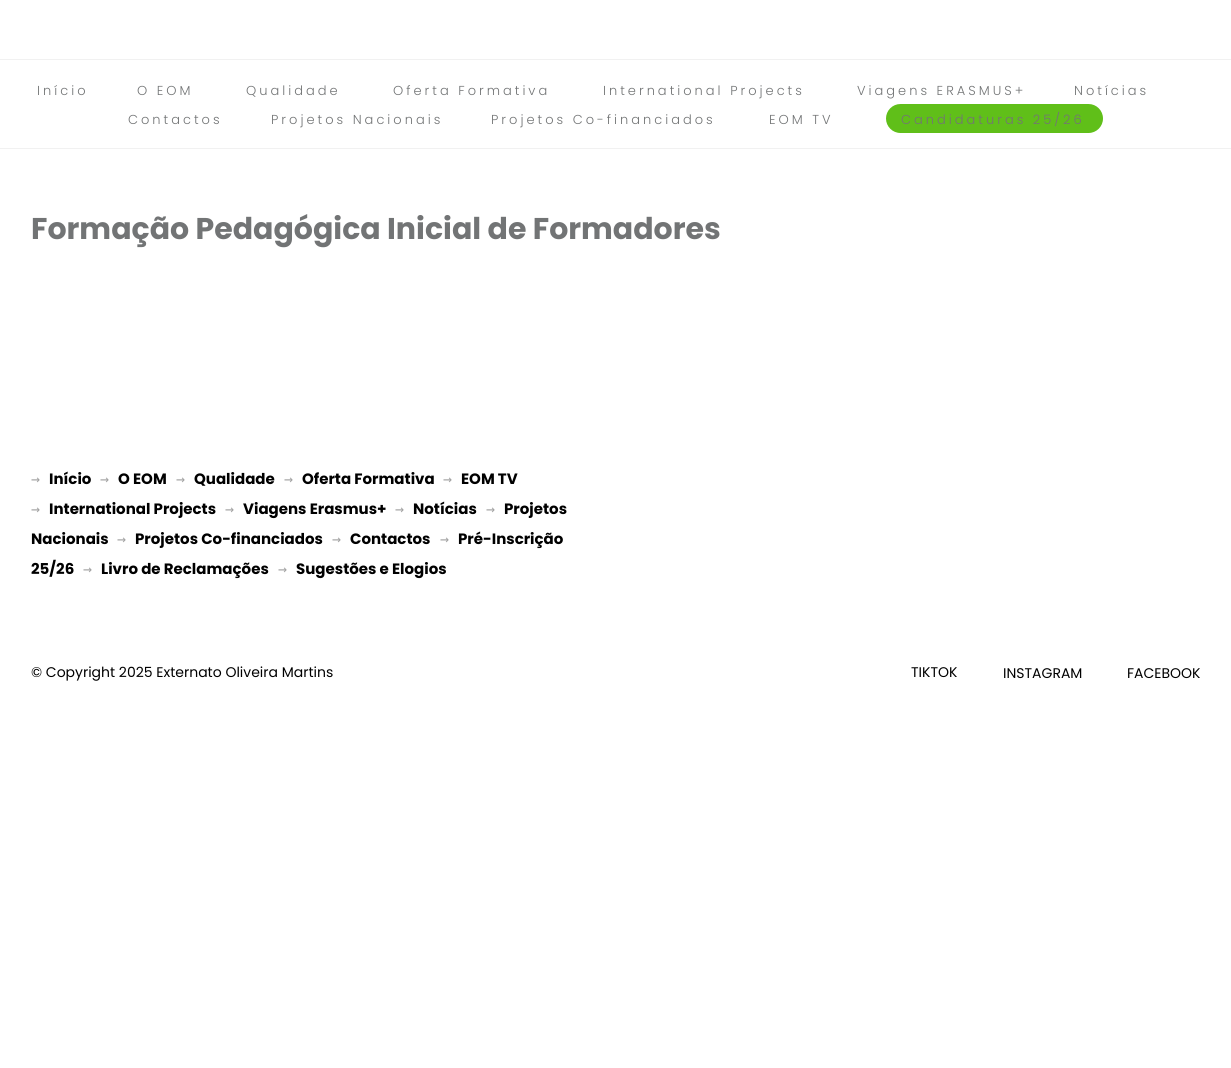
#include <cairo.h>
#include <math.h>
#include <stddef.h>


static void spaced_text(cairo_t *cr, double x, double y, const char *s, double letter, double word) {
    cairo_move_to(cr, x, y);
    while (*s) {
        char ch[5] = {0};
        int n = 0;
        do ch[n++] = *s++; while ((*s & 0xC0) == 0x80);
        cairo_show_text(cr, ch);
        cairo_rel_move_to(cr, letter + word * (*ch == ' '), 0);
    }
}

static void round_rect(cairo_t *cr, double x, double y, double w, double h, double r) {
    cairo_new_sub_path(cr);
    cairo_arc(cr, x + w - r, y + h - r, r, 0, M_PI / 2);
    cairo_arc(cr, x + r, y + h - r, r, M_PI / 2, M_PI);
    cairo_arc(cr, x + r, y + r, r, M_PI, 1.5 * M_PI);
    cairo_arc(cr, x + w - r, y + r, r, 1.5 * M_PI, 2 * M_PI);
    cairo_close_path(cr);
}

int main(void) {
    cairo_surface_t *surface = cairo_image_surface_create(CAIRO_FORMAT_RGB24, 1231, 1068);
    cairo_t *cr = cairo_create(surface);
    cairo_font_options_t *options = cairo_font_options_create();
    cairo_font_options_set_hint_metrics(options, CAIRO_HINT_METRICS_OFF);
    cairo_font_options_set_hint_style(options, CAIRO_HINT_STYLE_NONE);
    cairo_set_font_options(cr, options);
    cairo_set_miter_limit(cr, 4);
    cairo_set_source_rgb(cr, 1, 1, 1);
    cairo_paint(cr);
    cairo_set_source_rgb(cr, 0.945, 0.945, 0.945);
    cairo_rectangle(cr, 0, 59, 1231, 1);
    cairo_fill(cr);
    cairo_rectangle(cr, 0, 148, 1231, 1);
    cairo_fill(cr);
    cairo_select_font_face(cr, "Poppins Light", CAIRO_FONT_SLANT_NORMAL, CAIRO_FONT_WEIGHT_NORMAL);
    cairo_set_font_size(cr, 13);
    cairo_set_source_rgb(cr, 0.447, 0.455, 0.459);
    spaced_text(cr, 37, 95, "Início", 3, 0);
    spaced_text(cr, 137, 95, "O EOM", 3, 0);
    spaced_text(cr, 246, 95, "Qualidade", 3, 0);
    spaced_text(cr, 393, 95, "Oferta Formativa", 3, 0);
    spaced_text(cr, 603, 95, "International Projects", 3, 0);
    spaced_text(cr, 857, 95, "Viagens ERASMUS+", 3, 0);
    spaced_text(cr, 1074, 95, "Notícias", 3, 0);
    spaced_text(cr, 128, 124, "Contactos", 3, 0);
    spaced_text(cr, 271, 124, "Projetos Nacionais", 3, 0);
    spaced_text(cr, 491, 124, "Projetos Co-financiados", 3, 0);
    spaced_text(cr, 769, 124, "EOM TV", 3, 0);
    cairo_set_source_rgb(cr, 0.376, 0.749, 0.098);
    round_rect(cr, 886, 104, 217, 29, 14.5);
    cairo_fill(cr);
    cairo_set_source_rgb(cr, 0.447, 0.455, 0.459);
    spaced_text(cr, 901, 124, "Candidaturas 25/26", 3, 0);
    cairo_select_font_face(cr, "Poppins", CAIRO_FONT_SLANT_NORMAL, CAIRO_FONT_WEIGHT_BOLD);
    cairo_set_font_size(cr, 30);
    cairo_move_to(cr, 31, 239);
    cairo_show_text(cr, "Formação Pedagógica Inicial de Formadores");
    cairo_select_font_face(cr, "DejaVu Sans Mono", CAIRO_FONT_SLANT_NORMAL, CAIRO_FONT_WEIGHT_NORMAL);
    cairo_set_font_size(cr, 15);
    cairo_set_source_rgb(cr, 0.639, 0.639, 0.639);
    cairo_move_to(cr, 31, 484);
    cairo_show_text(cr, "→");
    cairo_select_font_face(cr, "Poppins", CAIRO_FONT_SLANT_NORMAL, CAIRO_FONT_WEIGHT_BOLD);
    cairo_set_source_rgb(cr, 0, 0, 0);
    cairo_move_to(cr, 49, 484);
    cairo_show_text(cr, "Início");
    cairo_select_font_face(cr, "DejaVu Sans Mono", CAIRO_FONT_SLANT_NORMAL, CAIRO_FONT_WEIGHT_NORMAL);
    cairo_set_source_rgb(cr, 0.639, 0.639, 0.639);
    cairo_move_to(cr, 100, 484);
    cairo_show_text(cr, "→");
    cairo_select_font_face(cr, "Poppins", CAIRO_FONT_SLANT_NORMAL, CAIRO_FONT_WEIGHT_BOLD);
    cairo_set_source_rgb(cr, 0, 0, 0);
    cairo_move_to(cr, 118, 484);
    cairo_show_text(cr, "O EOM");
    cairo_select_font_face(cr, "DejaVu Sans Mono", CAIRO_FONT_SLANT_NORMAL, CAIRO_FONT_WEIGHT_NORMAL);
    cairo_set_source_rgb(cr, 0.639, 0.639, 0.639);
    cairo_move_to(cr, 176, 484);
    cairo_show_text(cr, "→");
    cairo_select_font_face(cr, "Poppins", CAIRO_FONT_SLANT_NORMAL, CAIRO_FONT_WEIGHT_BOLD);
    cairo_set_source_rgb(cr, 0, 0, 0);
    cairo_move_to(cr, 194, 484);
    cairo_show_text(cr, "Qualidade");
    cairo_select_font_face(cr, "DejaVu Sans Mono", CAIRO_FONT_SLANT_NORMAL, CAIRO_FONT_WEIGHT_NORMAL);
    cairo_set_source_rgb(cr, 0.639, 0.639, 0.639);
    cairo_move_to(cr, 284, 484);
    cairo_show_text(cr, "→");
    cairo_select_font_face(cr, "Poppins", CAIRO_FONT_SLANT_NORMAL, CAIRO_FONT_WEIGHT_BOLD);
    cairo_set_source_rgb(cr, 0, 0, 0);
    cairo_move_to(cr, 302, 484);
    cairo_show_text(cr, "Oferta Formativa");
    cairo_select_font_face(cr, "DejaVu Sans Mono", CAIRO_FONT_SLANT_NORMAL, CAIRO_FONT_WEIGHT_NORMAL);
    cairo_set_source_rgb(cr, 0.639, 0.639, 0.639);
    cairo_move_to(cr, 443, 484);
    cairo_show_text(cr, "→");
    cairo_select_font_face(cr, "Poppins", CAIRO_FONT_SLANT_NORMAL, CAIRO_FONT_WEIGHT_BOLD);
    cairo_set_source_rgb(cr, 0, 0, 0);
    cairo_move_to(cr, 461, 484);
    cairo_show_text(cr, "EOM TV");
    cairo_select_font_face(cr, "DejaVu Sans Mono", CAIRO_FONT_SLANT_NORMAL, CAIRO_FONT_WEIGHT_NORMAL);
    cairo_set_source_rgb(cr, 0.639, 0.639, 0.639);
    cairo_move_to(cr, 31, 514);
    cairo_show_text(cr, "→");
    cairo_select_font_face(cr, "Poppins", CAIRO_FONT_SLANT_NORMAL, CAIRO_FONT_WEIGHT_BOLD);
    cairo_set_source_rgb(cr, 0, 0, 0);
    cairo_move_to(cr, 49, 514);
    cairo_show_text(cr, "International Projects");
    cairo_select_font_face(cr, "DejaVu Sans Mono", CAIRO_FONT_SLANT_NORMAL, CAIRO_FONT_WEIGHT_NORMAL);
    cairo_set_source_rgb(cr, 0.639, 0.639, 0.639);
    cairo_move_to(cr, 225, 514);
    cairo_show_text(cr, "→");
    cairo_select_font_face(cr, "Poppins", CAIRO_FONT_SLANT_NORMAL, CAIRO_FONT_WEIGHT_BOLD);
    cairo_set_source_rgb(cr, 0, 0, 0);
    cairo_move_to(cr, 243, 514);
    cairo_show_text(cr, "Viagens Erasmus+");
    cairo_select_font_face(cr, "DejaVu Sans Mono", CAIRO_FONT_SLANT_NORMAL, CAIRO_FONT_WEIGHT_NORMAL);
    cairo_set_source_rgb(cr, 0.639, 0.639, 0.639);
    cairo_move_to(cr, 395, 514);
    cairo_show_text(cr, "→");
    cairo_select_font_face(cr, "Poppins", CAIRO_FONT_SLANT_NORMAL, CAIRO_FONT_WEIGHT_BOLD);
    cairo_set_source_rgb(cr, 0, 0, 0);
    cairo_move_to(cr, 413, 514);
    cairo_show_text(cr, "Notícias");
    cairo_select_font_face(cr, "DejaVu Sans Mono", CAIRO_FONT_SLANT_NORMAL, CAIRO_FONT_WEIGHT_NORMAL);
    cairo_set_source_rgb(cr, 0.639, 0.639, 0.639);
    cairo_move_to(cr, 486, 514);
    cairo_show_text(cr, "→");
    cairo_select_font_face(cr, "Poppins", CAIRO_FONT_SLANT_NORMAL, CAIRO_FONT_WEIGHT_BOLD);
    cairo_set_source_rgb(cr, 0, 0, 0);
    cairo_move_to(cr, 504, 514);
    cairo_show_text(cr, "Projetos");
    cairo_move_to(cr, 31, 544);
    cairo_show_text(cr, "Nacionais");
    cairo_select_font_face(cr, "DejaVu Sans Mono", CAIRO_FONT_SLANT_NORMAL, CAIRO_FONT_WEIGHT_NORMAL);
    cairo_set_source_rgb(cr, 0.639, 0.639, 0.639);
    cairo_move_to(cr, 117, 544);
    cairo_show_text(cr, "→");
    cairo_select_font_face(cr, "Poppins", CAIRO_FONT_SLANT_NORMAL, CAIRO_FONT_WEIGHT_BOLD);
    cairo_set_source_rgb(cr, 0, 0, 0);
    cairo_move_to(cr, 135, 544);
    cairo_show_text(cr, "Projetos Co-financiados");
    cairo_select_font_face(cr, "DejaVu Sans Mono", CAIRO_FONT_SLANT_NORMAL, CAIRO_FONT_WEIGHT_NORMAL);
    cairo_set_source_rgb(cr, 0.639, 0.639, 0.639);
    cairo_move_to(cr, 332, 544);
    cairo_show_text(cr, "→");
    cairo_select_font_face(cr, "Poppins", CAIRO_FONT_SLANT_NORMAL, CAIRO_FONT_WEIGHT_BOLD);
    cairo_set_source_rgb(cr, 0, 0, 0);
    cairo_move_to(cr, 350, 544);
    cairo_show_text(cr, "Contactos");
    cairo_select_font_face(cr, "DejaVu Sans Mono", CAIRO_FONT_SLANT_NORMAL, CAIRO_FONT_WEIGHT_NORMAL);
    cairo_set_source_rgb(cr, 0.639, 0.639, 0.639);
    cairo_move_to(cr, 440, 544);
    cairo_show_text(cr, "→");
    cairo_select_font_face(cr, "Poppins", CAIRO_FONT_SLANT_NORMAL, CAIRO_FONT_WEIGHT_BOLD);
    cairo_set_source_rgb(cr, 0, 0, 0);
    cairo_move_to(cr, 458, 544);
    cairo_show_text(cr, "Pré-Inscrição");
    cairo_move_to(cr, 31, 574);
    cairo_show_text(cr, "25/26");
    cairo_select_font_face(cr, "DejaVu Sans Mono", CAIRO_FONT_SLANT_NORMAL, CAIRO_FONT_WEIGHT_NORMAL);
    cairo_set_source_rgb(cr, 0.639, 0.639, 0.639);
    cairo_move_to(cr, 83, 574);
    cairo_show_text(cr, "→");
    cairo_select_font_face(cr, "Poppins", CAIRO_FONT_SLANT_NORMAL, CAIRO_FONT_WEIGHT_BOLD);
    cairo_set_source_rgb(cr, 0, 0, 0);
    cairo_move_to(cr, 101, 574);
    cairo_show_text(cr, "Livro de Reclamações");
    cairo_select_font_face(cr, "DejaVu Sans Mono", CAIRO_FONT_SLANT_NORMAL, CAIRO_FONT_WEIGHT_NORMAL);
    cairo_set_source_rgb(cr, 0.639, 0.639, 0.639);
    cairo_move_to(cr, 278, 574);
    cairo_show_text(cr, "→");
    cairo_select_font_face(cr, "Poppins", CAIRO_FONT_SLANT_NORMAL, CAIRO_FONT_WEIGHT_BOLD);
    cairo_set_source_rgb(cr, 0, 0, 0);
    cairo_move_to(cr, 296, 574);
    cairo_show_text(cr, "Sugestões e Elogios");
    cairo_select_font_face(cr, "Poppins", CAIRO_FONT_SLANT_NORMAL, CAIRO_FONT_WEIGHT_NORMAL);
    cairo_set_font_size(cr, 14);
    cairo_move_to(cr, 31, 677);
    cairo_show_text(cr, "© Copyright 2025 Externato Oliveira Martins");
    cairo_move_to(cr, 911, 677);
    cairo_show_text(cr, "TIKTOK");
    cairo_move_to(cr, 1003, 678);
    cairo_show_text(cr, "INSTAGRAM");
    cairo_move_to(cr, 1127, 678);
    cairo_show_text(cr, "FACEBOOK");
    cairo_surface_write_to_png(surface, "page.png");
    cairo_font_options_destroy(options);
    cairo_destroy(cr);
    cairo_surface_destroy(surface);
    return 0;
}
